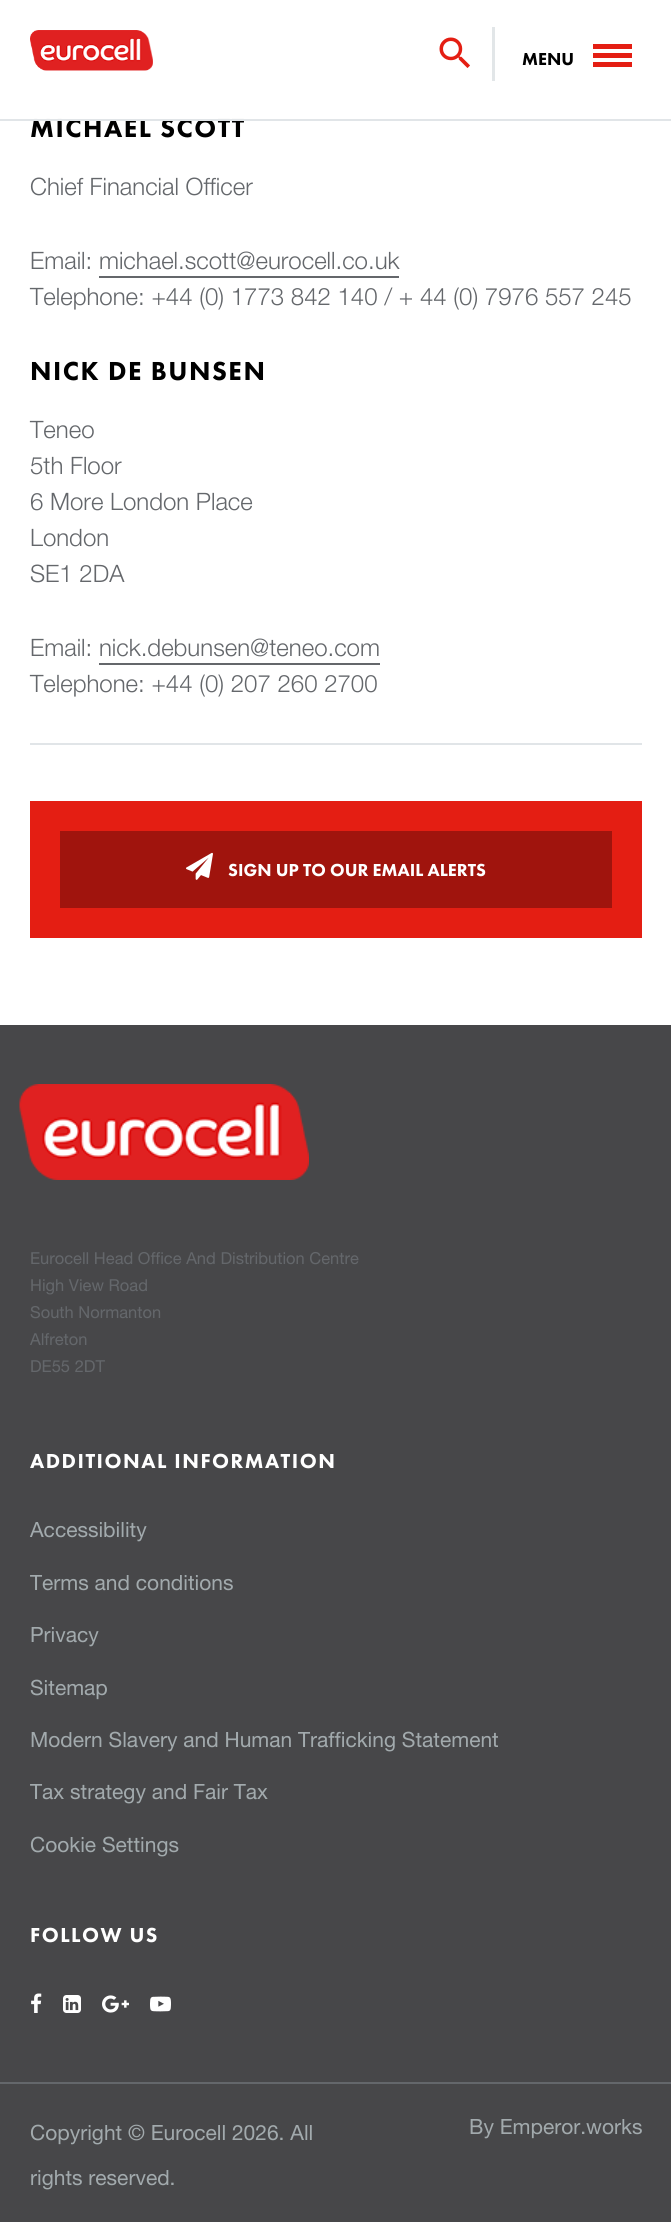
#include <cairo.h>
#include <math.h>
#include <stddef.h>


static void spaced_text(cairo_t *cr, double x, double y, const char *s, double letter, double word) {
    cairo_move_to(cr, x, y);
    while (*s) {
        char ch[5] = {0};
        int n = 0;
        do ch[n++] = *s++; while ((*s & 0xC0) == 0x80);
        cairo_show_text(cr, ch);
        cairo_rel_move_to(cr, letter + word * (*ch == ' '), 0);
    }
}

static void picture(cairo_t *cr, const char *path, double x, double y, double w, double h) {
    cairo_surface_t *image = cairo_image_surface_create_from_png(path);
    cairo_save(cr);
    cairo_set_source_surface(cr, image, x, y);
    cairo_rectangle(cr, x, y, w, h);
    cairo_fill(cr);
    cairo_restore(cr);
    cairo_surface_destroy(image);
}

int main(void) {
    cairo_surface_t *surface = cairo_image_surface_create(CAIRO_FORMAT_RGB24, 671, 2222);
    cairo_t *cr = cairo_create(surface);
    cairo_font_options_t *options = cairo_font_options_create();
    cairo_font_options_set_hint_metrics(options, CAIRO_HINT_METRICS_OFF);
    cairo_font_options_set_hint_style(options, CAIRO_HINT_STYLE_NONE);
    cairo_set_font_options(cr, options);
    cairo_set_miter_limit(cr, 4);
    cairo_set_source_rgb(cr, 1, 1, 1);
    cairo_paint(cr);
    cairo_select_font_face(cr, "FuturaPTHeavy", CAIRO_FONT_SLANT_NORMAL, CAIRO_FONT_WEIGHT_NORMAL);
    cairo_set_font_size(cr, 27);
    cairo_set_source_rgb(cr, 0, 0, 0);
    spaced_text(cr, 30, 137, "MICHAEL SCOTT", 1.5, 0);
    cairo_set_source_rgb(cr, 1, 1, 1);
    cairo_rectangle(cr, 73, 118, 136, 1);
    cairo_fill(cr);
    cairo_set_source_rgb(cr, 0.882, 0.898, 0.91);
    cairo_rectangle(cr, 0, 119, 671, 2);
    cairo_fill(cr);
    picture(cr, "img1.png", 30, 30, 123, 41);
    picture(cr, "img2.png", 439, 37, 31, 31);
    cairo_set_source_rgb(cr, 0.886, 0.902, 0.91);
    cairo_rectangle(cr, 492, 27, 3, 54);
    cairo_fill(cr);
    cairo_set_font_size(cr, 18);
    cairo_set_source_rgb(cr, 0, 0, 0);
    cairo_move_to(cr, 522, 65);
    cairo_show_text(cr, "MENU");
    cairo_set_source_rgb(cr, 0.894, 0.118, 0.075);
    cairo_rectangle(cr, 593, 62, 39, 5);
    cairo_fill(cr);
    cairo_rectangle(cr, 593, 53, 39, 5);
    cairo_fill(cr);
    cairo_rectangle(cr, 593, 44, 39, 5);
    cairo_fill(cr);
    cairo_select_font_face(cr, "Helvetica Neue Light", CAIRO_FONT_SLANT_NORMAL, CAIRO_FONT_WEIGHT_NORMAL);
    cairo_set_font_size(cr, 24);
    cairo_set_source_rgb(cr, 0.392, 0.404, 0.42);
    cairo_move_to(cr, 30, 195);
    cairo_show_text(cr, "Chief Financial Officer");
    cairo_move_to(cr, 30, 269);
    cairo_show_text(cr, "Email: michael.scott@eurocell.co.uk");
    cairo_rectangle(cr, 99, 276, 300, 2);
    cairo_fill(cr);
    cairo_move_to(cr, 30, 305);
    cairo_show_text(cr, "Telephone: +44 (0) 1773 842 140 / + 44 (0) 7976 557 245");
    cairo_select_font_face(cr, "FuturaPTHeavy", CAIRO_FONT_SLANT_NORMAL, CAIRO_FONT_WEIGHT_NORMAL);
    cairo_set_font_size(cr, 27);
    cairo_set_source_rgb(cr, 0, 0, 0);
    spaced_text(cr, 30, 380, "NICK DE BUNSEN", 1.5, 0);
    cairo_select_font_face(cr, "Helvetica Neue Light", CAIRO_FONT_SLANT_NORMAL, CAIRO_FONT_WEIGHT_NORMAL);
    cairo_set_font_size(cr, 24);
    cairo_set_source_rgb(cr, 0.392, 0.404, 0.42);
    cairo_move_to(cr, 30, 438);
    cairo_show_text(cr, "Teneo");
    cairo_move_to(cr, 30, 474);
    cairo_show_text(cr, "5th Floor");
    cairo_move_to(cr, 30, 510);
    cairo_show_text(cr, "6 More London Place");
    cairo_move_to(cr, 30, 546);
    cairo_show_text(cr, "London");
    cairo_move_to(cr, 30, 582);
    cairo_show_text(cr, "SE1 2DA");
    cairo_move_to(cr, 30, 656);
    cairo_show_text(cr, "Email: nick.debunsen@teneo.com");
    cairo_rectangle(cr, 99, 663, 281, 2);
    cairo_fill(cr);
    cairo_move_to(cr, 30, 692);
    cairo_show_text(cr, "Telephone: +44 (0) 207 260 2700");
    cairo_set_source_rgb(cr, 0.882, 0.898, 0.91);
    cairo_rectangle(cr, 30, 743, 612, 2);
    cairo_fill(cr);
    cairo_set_source_rgb(cr, 0.627, 0.082, 0.051);
    cairo_rectangle(cr, 45, 816, 582, 107);
    cairo_fill_preserve(cr);
    cairo_set_source_rgb(cr, 0.894, 0.118, 0.075);
    cairo_set_line_width(cr, 30);
    cairo_stroke(cr);
    picture(cr, "img3.png", 186, 852, 27, 28);
    cairo_select_font_face(cr, "FuturaPTHeavy", CAIRO_FONT_SLANT_NORMAL, CAIRO_FONT_WEIGHT_NORMAL);
    cairo_set_font_size(cr, 18);
    cairo_set_source_rgb(cr, 1, 1, 1);
    cairo_move_to(cr, 228, 876);
    cairo_show_text(cr, "SIGN UP TO OUR EMAIL ALERTS");
    cairo_set_source_rgb(cr, 0.278, 0.278, 0.286);
    cairo_rectangle(cr, 0, 1025, 671, 1197);
    cairo_fill(cr);
    picture(cr, "img4.png", 19, 1084, 290, 96);
    cairo_select_font_face(cr, "Helvetica Neue", CAIRO_FONT_SLANT_NORMAL, CAIRO_FONT_WEIGHT_NORMAL);
    cairo_set_font_size(cr, 16.5);
    cairo_set_source_rgb(cr, 0.392, 0.404, 0.42);
    cairo_move_to(cr, 30, 1264);
    cairo_show_text(cr, "Eurocell Head Office And Distribution Centre");
    cairo_move_to(cr, 30, 1291);
    cairo_show_text(cr, "High View Road");
    cairo_move_to(cr, 30, 1318);
    cairo_show_text(cr, "South Normanton");
    cairo_move_to(cr, 30, 1345);
    cairo_show_text(cr, "Alfreton");
    cairo_move_to(cr, 30, 1372);
    cairo_show_text(cr, "DE55 2DT");
    cairo_select_font_face(cr, "FuturaPTHeavy", CAIRO_FONT_SLANT_NORMAL, CAIRO_FONT_WEIGHT_NORMAL);
    cairo_set_font_size(cr, 21);
    cairo_set_source_rgb(cr, 1, 1, 1);
    spaced_text(cr, 30, 1468, "ADDITIONAL INFORMATION", 1.5, 0);
    cairo_select_font_face(cr, "Helvetica Neue", CAIRO_FONT_SLANT_NORMAL, CAIRO_FONT_WEIGHT_NORMAL);
    cairo_set_source_rgb(cr, 0.635, 0.667, 0.678);
    cairo_move_to(cr, 30, 1537);
    cairo_show_text(cr, "Accessibility");
    cairo_move_to(cr, 30, 1590);
    cairo_show_text(cr, "Terms and conditions");
    cairo_move_to(cr, 30, 1642);
    cairo_show_text(cr, "Privacy");
    cairo_move_to(cr, 30, 1695);
    cairo_show_text(cr, "Sitemap");
    cairo_move_to(cr, 30, 1747);
    cairo_show_text(cr, "Modern Slavery and Human Trafficking Statement");
    cairo_move_to(cr, 30, 1799);
    cairo_show_text(cr, "Tax strategy and Fair Tax");
    cairo_move_to(cr, 30, 1852);
    cairo_show_text(cr, "Cookie Settings");
    cairo_select_font_face(cr, "FuturaPTHeavy", CAIRO_FONT_SLANT_NORMAL, CAIRO_FONT_WEIGHT_NORMAL);
    cairo_set_source_rgb(cr, 1, 1, 1);
    spaced_text(cr, 30, 1942, "FOLLOW US", 1.5, 0);
    picture(cr, "img5.png", 31, 1993, 11, 20);
    picture(cr, "img6.png", 63, 1995, 18, 18);
    picture(cr, "img7.png", 102, 1995, 27, 18);
    picture(cr, "img8.png", 150, 1996, 21, 16);
    cairo_set_source_rgb(cr, 0.392, 0.404, 0.42);
    cairo_rectangle(cr, 0, 2082, 671, 2);
    cairo_fill(cr);
    cairo_select_font_face(cr, "Helvetica Neue", CAIRO_FONT_SLANT_NORMAL, CAIRO_FONT_WEIGHT_NORMAL);
    cairo_set_source_rgb(cr, 0.635, 0.667, 0.678);
    cairo_move_to(cr, 30, 2140);
    cairo_show_text(cr, "Copyright © Eurocell 2026. All");
    cairo_move_to(cr, 30, 2185);
    cairo_show_text(cr, "rights reserved.");
    cairo_move_to(cr, 469, 2134);
    cairo_show_text(cr, "By Emperor.works");
    cairo_surface_write_to_png(surface, "page.png");
    cairo_font_options_destroy(options);
    cairo_destroy(cr);
    cairo_surface_destroy(surface);
    return 0;
}
